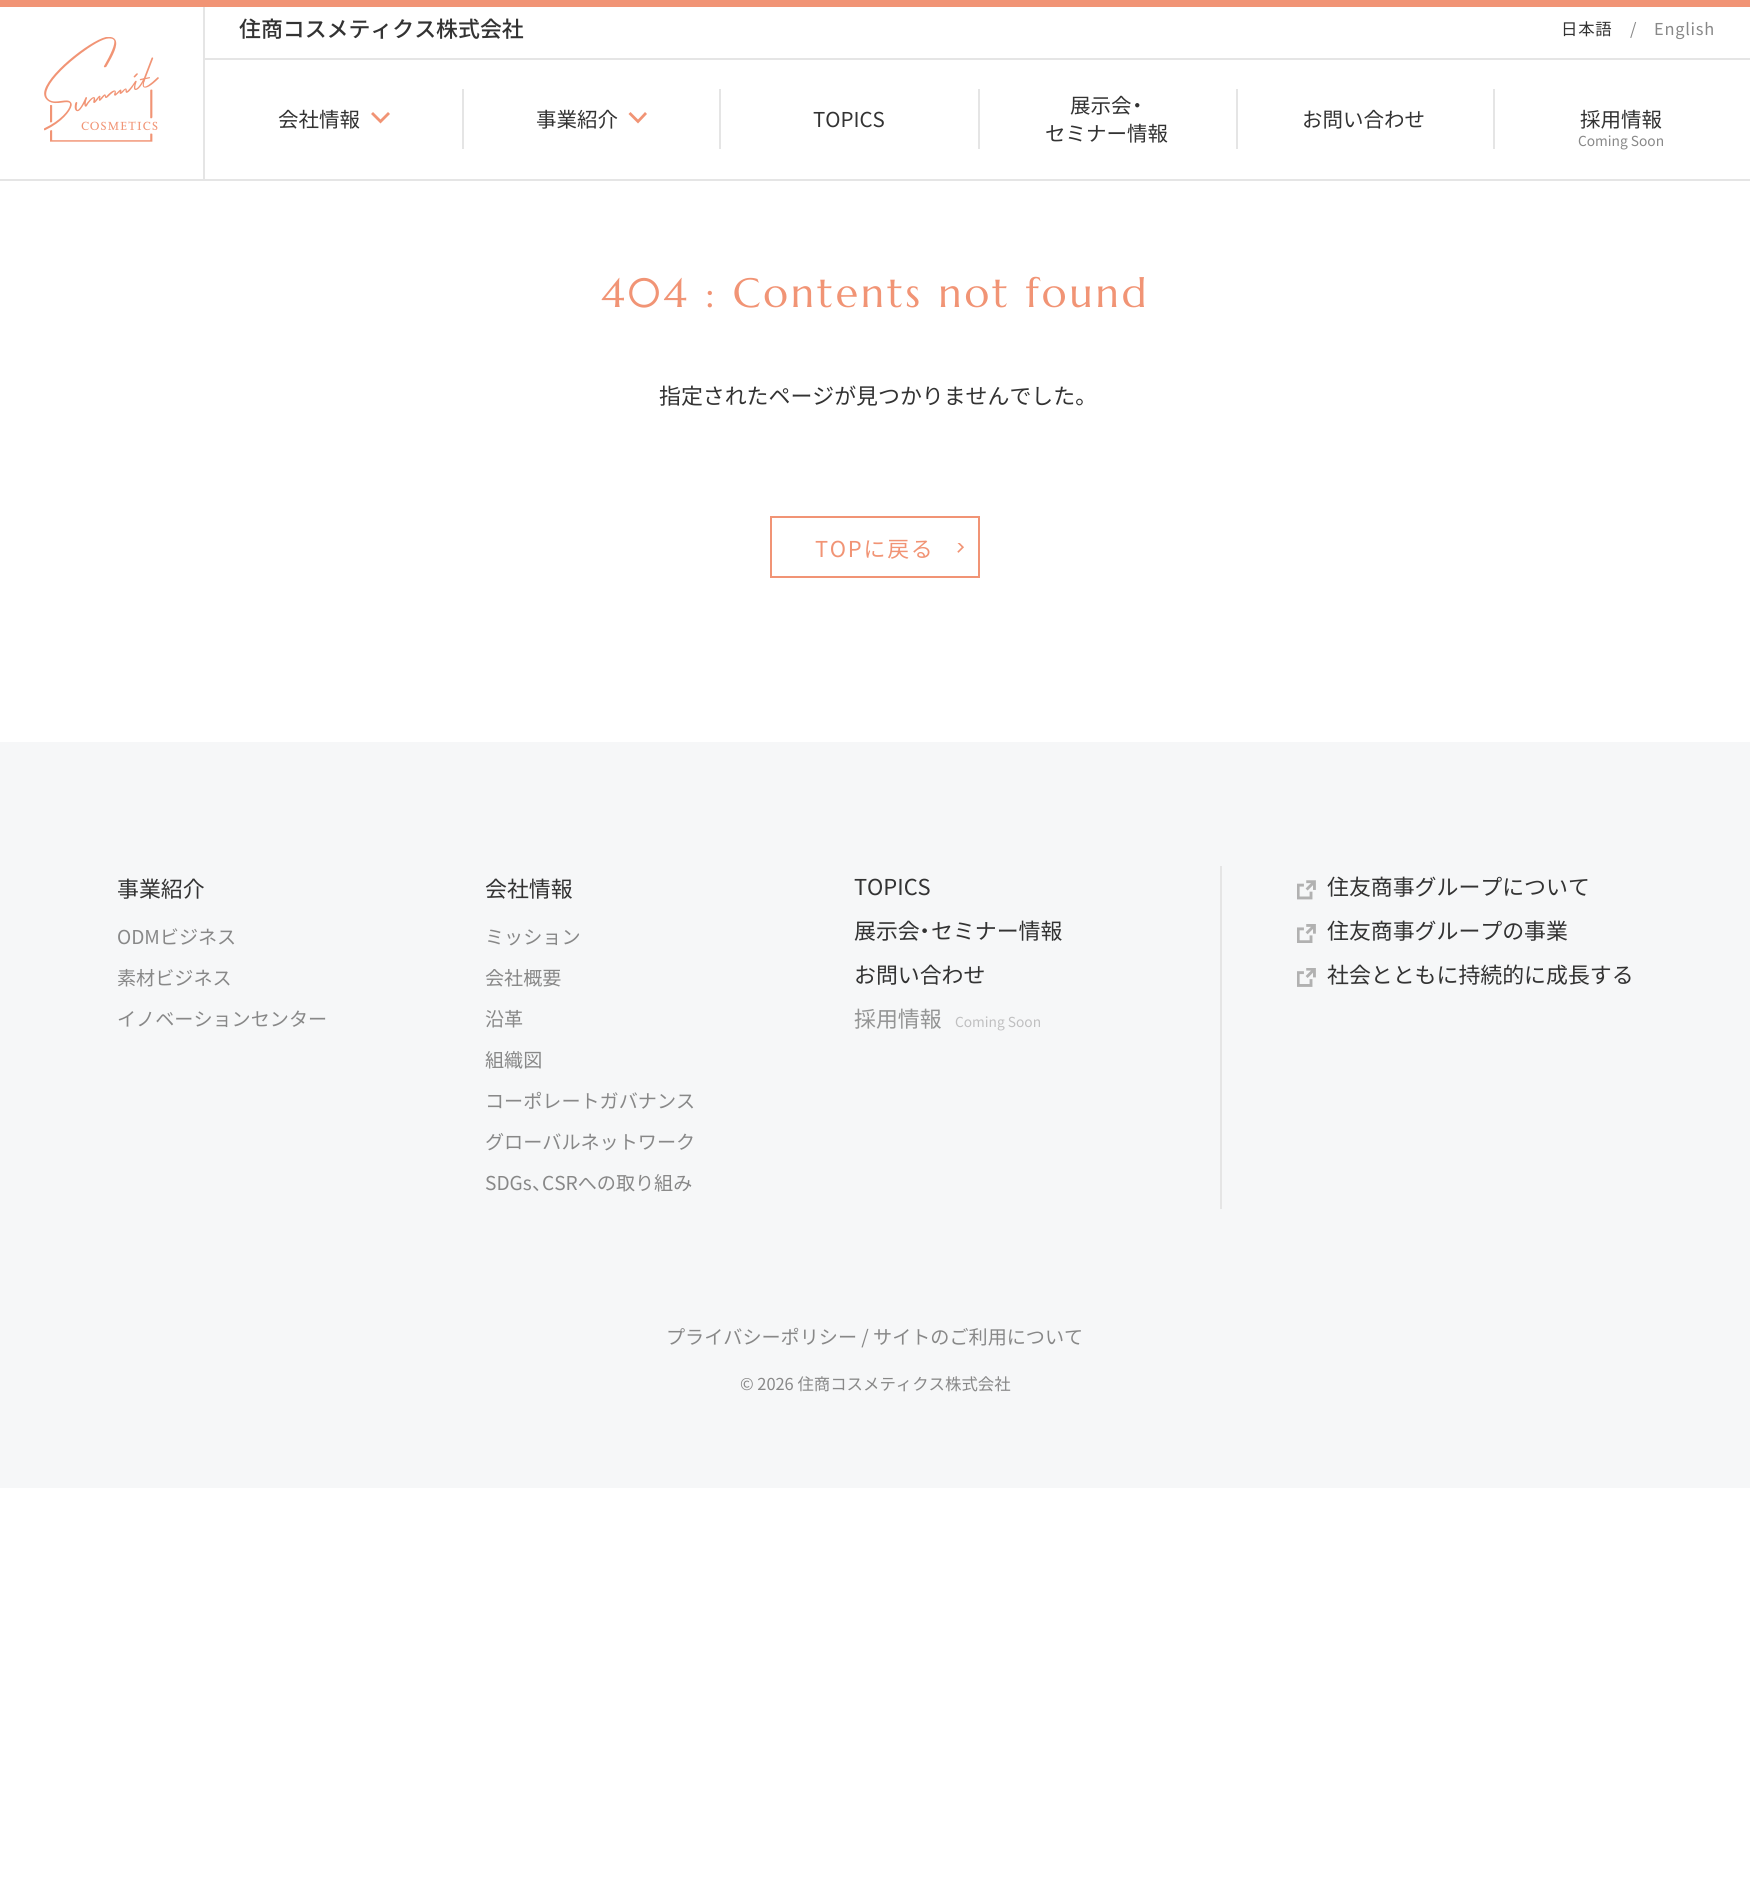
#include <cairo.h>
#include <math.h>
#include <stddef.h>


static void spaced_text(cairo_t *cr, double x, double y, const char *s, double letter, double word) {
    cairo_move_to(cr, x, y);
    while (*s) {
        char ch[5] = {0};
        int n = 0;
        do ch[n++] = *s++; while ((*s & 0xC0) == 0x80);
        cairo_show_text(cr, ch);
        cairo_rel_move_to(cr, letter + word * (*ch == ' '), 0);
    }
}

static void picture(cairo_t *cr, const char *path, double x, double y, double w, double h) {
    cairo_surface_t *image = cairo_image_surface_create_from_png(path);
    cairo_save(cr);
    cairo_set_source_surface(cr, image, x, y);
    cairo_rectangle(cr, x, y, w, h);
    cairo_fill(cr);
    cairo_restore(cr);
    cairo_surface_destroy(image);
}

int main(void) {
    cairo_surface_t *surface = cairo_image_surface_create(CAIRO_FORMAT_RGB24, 1750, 1896);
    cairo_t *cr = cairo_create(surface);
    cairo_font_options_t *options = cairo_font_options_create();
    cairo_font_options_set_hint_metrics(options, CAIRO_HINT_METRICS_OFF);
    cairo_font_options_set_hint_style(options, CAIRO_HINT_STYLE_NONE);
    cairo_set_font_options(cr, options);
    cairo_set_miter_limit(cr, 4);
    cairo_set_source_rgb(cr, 1, 1, 1);
    cairo_paint(cr);
    cairo_set_source_rgb(cr, 0.898, 0.898, 0.898);
    cairo_rectangle(cr, 203, 0, 2, 179);
    cairo_fill(cr);
    cairo_set_source_rgb(cr, 0.945, 0.58, 0.459);
    cairo_rectangle(cr, 0, 0, 1750, 7);
    cairo_fill(cr);
    picture(cr, "img1.png", 44, 37, 115, 105);
    cairo_set_source_rgb(cr, 0.898, 0.898, 0.898);
    cairo_rectangle(cr, 205, 58, 1545, 2);
    cairo_fill(cr);
    cairo_select_font_face(cr, "Noto Sans JP Medium", CAIRO_FONT_SLANT_NORMAL, CAIRO_FONT_WEIGHT_NORMAL);
    cairo_set_font_size(cr, 21.9);
    cairo_set_source_rgb(cr, 0.2, 0.2, 0.2);
    cairo_move_to(cr, 239, 37);
    cairo_show_text(cr, "住商コスメティクス株式会社");
    cairo_select_font_face(cr, "Noto Sans JP", CAIRO_FONT_SLANT_NORMAL, CAIRO_FONT_WEIGHT_NORMAL);
    cairo_set_font_size(cr, 16.4);
    spaced_text(cr, 1561, 35, "日本語", 0.75, 0);
    cairo_set_source_rgb(cr, 0.533, 0.533, 0.533);
    spaced_text(cr, 1630, 35, "/", 0.75, 0);
    spaced_text(cr, 1654, 35, "English", 0.75, 0);
    cairo_set_font_size(cr, 20.5);
    cairo_set_source_rgb(cr, 0.2, 0.2, 0.2);
    cairo_move_to(cr, 278, 127);
    cairo_show_text(cr, "会社情報");
    cairo_set_source_rgb(cr, 0.945, 0.58, 0.459);
    cairo_new_path(cr);
    cairo_move_to(cr, 380.5, 123.5);
    cairo_line_to(cr, 371, 114);
    cairo_line_to(cr, 373, 112);
    cairo_line_to(cr, 380.5, 119.5);
    cairo_line_to(cr, 388, 112);
    cairo_line_to(cr, 390, 114);
    cairo_close_path(cr);
    cairo_fill(cr);
    cairo_set_source_rgb(cr, 0.898, 0.898, 0.898);
    cairo_rectangle(cr, 462, 89, 2, 60);
    cairo_fill(cr);
    cairo_set_source_rgb(cr, 0.2, 0.2, 0.2);
    cairo_move_to(cr, 536, 127);
    cairo_show_text(cr, "事業紹介");
    cairo_set_source_rgb(cr, 0.945, 0.58, 0.459);
    cairo_new_path(cr);
    cairo_move_to(cr, 638, 123.5);
    cairo_line_to(cr, 628.5, 114);
    cairo_line_to(cr, 630.5, 112);
    cairo_line_to(cr, 638, 119.5);
    cairo_line_to(cr, 645, 112);
    cairo_line_to(cr, 647, 114);
    cairo_close_path(cr);
    cairo_fill(cr);
    cairo_set_source_rgb(cr, 0.898, 0.898, 0.898);
    cairo_rectangle(cr, 719, 89, 2, 60);
    cairo_fill(cr);
    cairo_set_source_rgb(cr, 0.2, 0.2, 0.2);
    cairo_move_to(cr, 813, 127);
    cairo_show_text(cr, "TOPICS");
    cairo_set_source_rgb(cr, 0.898, 0.898, 0.898);
    cairo_rectangle(cr, 978, 89, 2, 60);
    cairo_fill(cr);
    cairo_set_source_rgb(cr, 0.2, 0.2, 0.2);
    cairo_move_to(cr, 1070, 113);
    cairo_show_text(cr, "展示会");
    cairo_select_font_face(cr, "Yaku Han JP", CAIRO_FONT_SLANT_NORMAL, CAIRO_FONT_WEIGHT_NORMAL);
    cairo_move_to(cr, 1132, 113);
    cairo_show_text(cr, "・");
    cairo_select_font_face(cr, "Noto Sans JP", CAIRO_FONT_SLANT_NORMAL, CAIRO_FONT_WEIGHT_NORMAL);
    cairo_move_to(cr, 1045, 141);
    cairo_show_text(cr, "セミナー情報");
    cairo_set_source_rgb(cr, 0.898, 0.898, 0.898);
    cairo_rectangle(cr, 1236, 89, 2, 60);
    cairo_fill(cr);
    cairo_set_source_rgb(cr, 0.2, 0.2, 0.2);
    cairo_move_to(cr, 1302, 127);
    cairo_show_text(cr, "お問い合わせ");
    cairo_set_source_rgb(cr, 0.898, 0.898, 0.898);
    cairo_rectangle(cr, 1493, 89, 2, 60);
    cairo_fill(cr);
    cairo_set_source_rgb(cr, 0.2, 0.2, 0.2);
    cairo_move_to(cr, 1580, 127);
    cairo_show_text(cr, "採用情報");
    cairo_set_font_size(cr, 13.75);
    cairo_set_source_rgb(cr, 0.533, 0.533, 0.533);
    cairo_move_to(cr, 1578, 146);
    cairo_show_text(cr, "Coming Soon");
    cairo_set_source_rgb(cr, 0.898, 0.898, 0.898);
    cairo_rectangle(cr, 0, 179, 1750, 2);
    cairo_fill(cr);
    cairo_select_font_face(cr, "Marcellus", CAIRO_FONT_SLANT_NORMAL, CAIRO_FONT_WEIGHT_NORMAL);
    cairo_set_font_size(cr, 41);
    cairo_set_source_rgb(cr, 0.945, 0.58, 0.459);
    spaced_text(cr, 601, 307, "404 : Contents not found", 2.9, 0);
    cairo_select_font_face(cr, "Noto Sans JP", CAIRO_FONT_SLANT_NORMAL, CAIRO_FONT_WEIGHT_NORMAL);
    cairo_set_font_size(cr, 21.9);
    cairo_set_source_rgb(cr, 0.2, 0.2, 0.2);
    cairo_move_to(cr, 659, 404);
    cairo_show_text(cr, "指定されたページが見つかりませんでした");
    cairo_select_font_face(cr, "Yaku Han JP", CAIRO_FONT_SLANT_NORMAL, CAIRO_FONT_WEIGHT_NORMAL);
    cairo_move_to(cr, 1075, 404);
    cairo_show_text(cr, "。");
    cairo_rectangle(cr, 771, 517, 208, 60);
    cairo_set_source_rgb(cr, 0.945, 0.58, 0.459);
    cairo_stroke(cr);
    cairo_select_font_face(cr, "Noto Sans JP", CAIRO_FONT_SLANT_NORMAL, CAIRO_FONT_WEIGHT_NORMAL);
    spaced_text(cr, 815, 557, "TOPに戻る", 1.75, 0);
    picture(cr, "img2.png", 957, 543, 7, 10);
    cairo_set_source_rgb(cr, 0.961, 0.965, 0.969);
    cairo_rectangle(cr, 0, 742, 1750, 746);
    cairo_fill(cr);
    cairo_set_source_rgb(cr, 0.2, 0.2, 0.2);
    cairo_move_to(cr, 117, 897);
    cairo_show_text(cr, "事業紹介");
    cairo_set_font_size(cr, 19.1);
    cairo_set_source_rgb(cr, 0.533, 0.533, 0.533);
    cairo_move_to(cr, 117, 944);
    cairo_show_text(cr, "ODMビジネス");
    cairo_move_to(cr, 117, 985);
    cairo_show_text(cr, "素材ビジネス");
    cairo_move_to(cr, 117, 1026);
    cairo_show_text(cr, "イノベーションセンター");
    cairo_set_font_size(cr, 21.9);
    cairo_set_source_rgb(cr, 0.2, 0.2, 0.2);
    cairo_move_to(cr, 485, 897);
    cairo_show_text(cr, "会社情報");
    cairo_set_font_size(cr, 19.1);
    cairo_set_source_rgb(cr, 0.533, 0.533, 0.533);
    cairo_move_to(cr, 485, 944);
    cairo_show_text(cr, "ミッション");
    cairo_move_to(cr, 485, 985);
    cairo_show_text(cr, "会社概要");
    cairo_move_to(cr, 485, 1026);
    cairo_show_text(cr, "沿革");
    cairo_move_to(cr, 485, 1067);
    cairo_show_text(cr, "組織図");
    cairo_move_to(cr, 485, 1108);
    cairo_show_text(cr, "コーポレートガバナンス");
    cairo_move_to(cr, 485, 1149);
    cairo_show_text(cr, "グローバルネットワーク");
    cairo_move_to(cr, 485, 1190);
    cairo_show_text(cr, "SDGs");
    cairo_select_font_face(cr, "Yaku Han JP", CAIRO_FONT_SLANT_NORMAL, CAIRO_FONT_WEIGHT_NORMAL);
    cairo_move_to(cr, 532, 1190);
    cairo_show_text(cr, "、");
    cairo_select_font_face(cr, "Noto Sans JP", CAIRO_FONT_SLANT_NORMAL, CAIRO_FONT_WEIGHT_NORMAL);
    cairo_move_to(cr, 542, 1190);
    cairo_show_text(cr, "CSRへの取り組み");
    cairo_set_font_size(cr, 21.9);
    cairo_set_source_rgb(cr, 0.2, 0.2, 0.2);
    cairo_move_to(cr, 854, 895);
    cairo_show_text(cr, "TOPICS");
    cairo_move_to(cr, 854, 939);
    cairo_show_text(cr, "展示会");
    cairo_select_font_face(cr, "Yaku Han JP", CAIRO_FONT_SLANT_NORMAL, CAIRO_FONT_WEIGHT_NORMAL);
    cairo_move_to(cr, 919, 939);
    cairo_show_text(cr, "・");
    cairo_select_font_face(cr, "Noto Sans JP", CAIRO_FONT_SLANT_NORMAL, CAIRO_FONT_WEIGHT_NORMAL);
    cairo_move_to(cr, 931, 939);
    cairo_show_text(cr, "セミナー情報");
    cairo_move_to(cr, 854, 983);
    cairo_show_text(cr, "お問い合わせ");
    cairo_set_source_rgb(cr, 0.58, 0.584, 0.584);
    cairo_move_to(cr, 854, 1027);
    cairo_show_text(cr, "採用情報");
    cairo_set_font_size(cr, 13.75);
    cairo_set_source_rgb(cr, 0.749, 0.749, 0.753);
    cairo_move_to(cr, 955, 1027);
    cairo_show_text(cr, "Coming Soon");
    cairo_set_source_rgb(cr, 0.898, 0.898, 0.898);
    cairo_rectangle(cr, 1220, 866, 2, 343);
    cairo_fill(cr);
    picture(cr, "img3.png", 1297, 880, 19, 20);
    cairo_set_font_size(cr, 21.9);
    cairo_set_source_rgb(cr, 0.2, 0.2, 0.2);
    cairo_move_to(cr, 1327, 895);
    cairo_show_text(cr, "住友商事グループについて");
    picture(cr, "img4.png", 1297, 924, 19, 19);
    cairo_move_to(cr, 1327, 939);
    cairo_show_text(cr, "住友商事グループの事業");
    picture(cr, "img5.png", 1297, 968, 19, 19);
    cairo_move_to(cr, 1327, 983);
    cairo_show_text(cr, "社会とともに持続的に成長する");
    cairo_set_font_size(cr, 19.1);
    cairo_set_source_rgb(cr, 0.533, 0.533, 0.533);
    cairo_move_to(cr, 666, 1344);
    cairo_show_text(cr, "プライバシーポリシー / サイトのご利用について");
    cairo_set_font_size(cr, 16.4);
    cairo_move_to(cr, 740, 1390);
    cairo_show_text(cr, "© 2026 住商コスメティクス株式会社");
    cairo_surface_write_to_png(surface, "page.png");
    cairo_font_options_destroy(options);
    cairo_destroy(cr);
    cairo_surface_destroy(surface);
    return 0;
}
